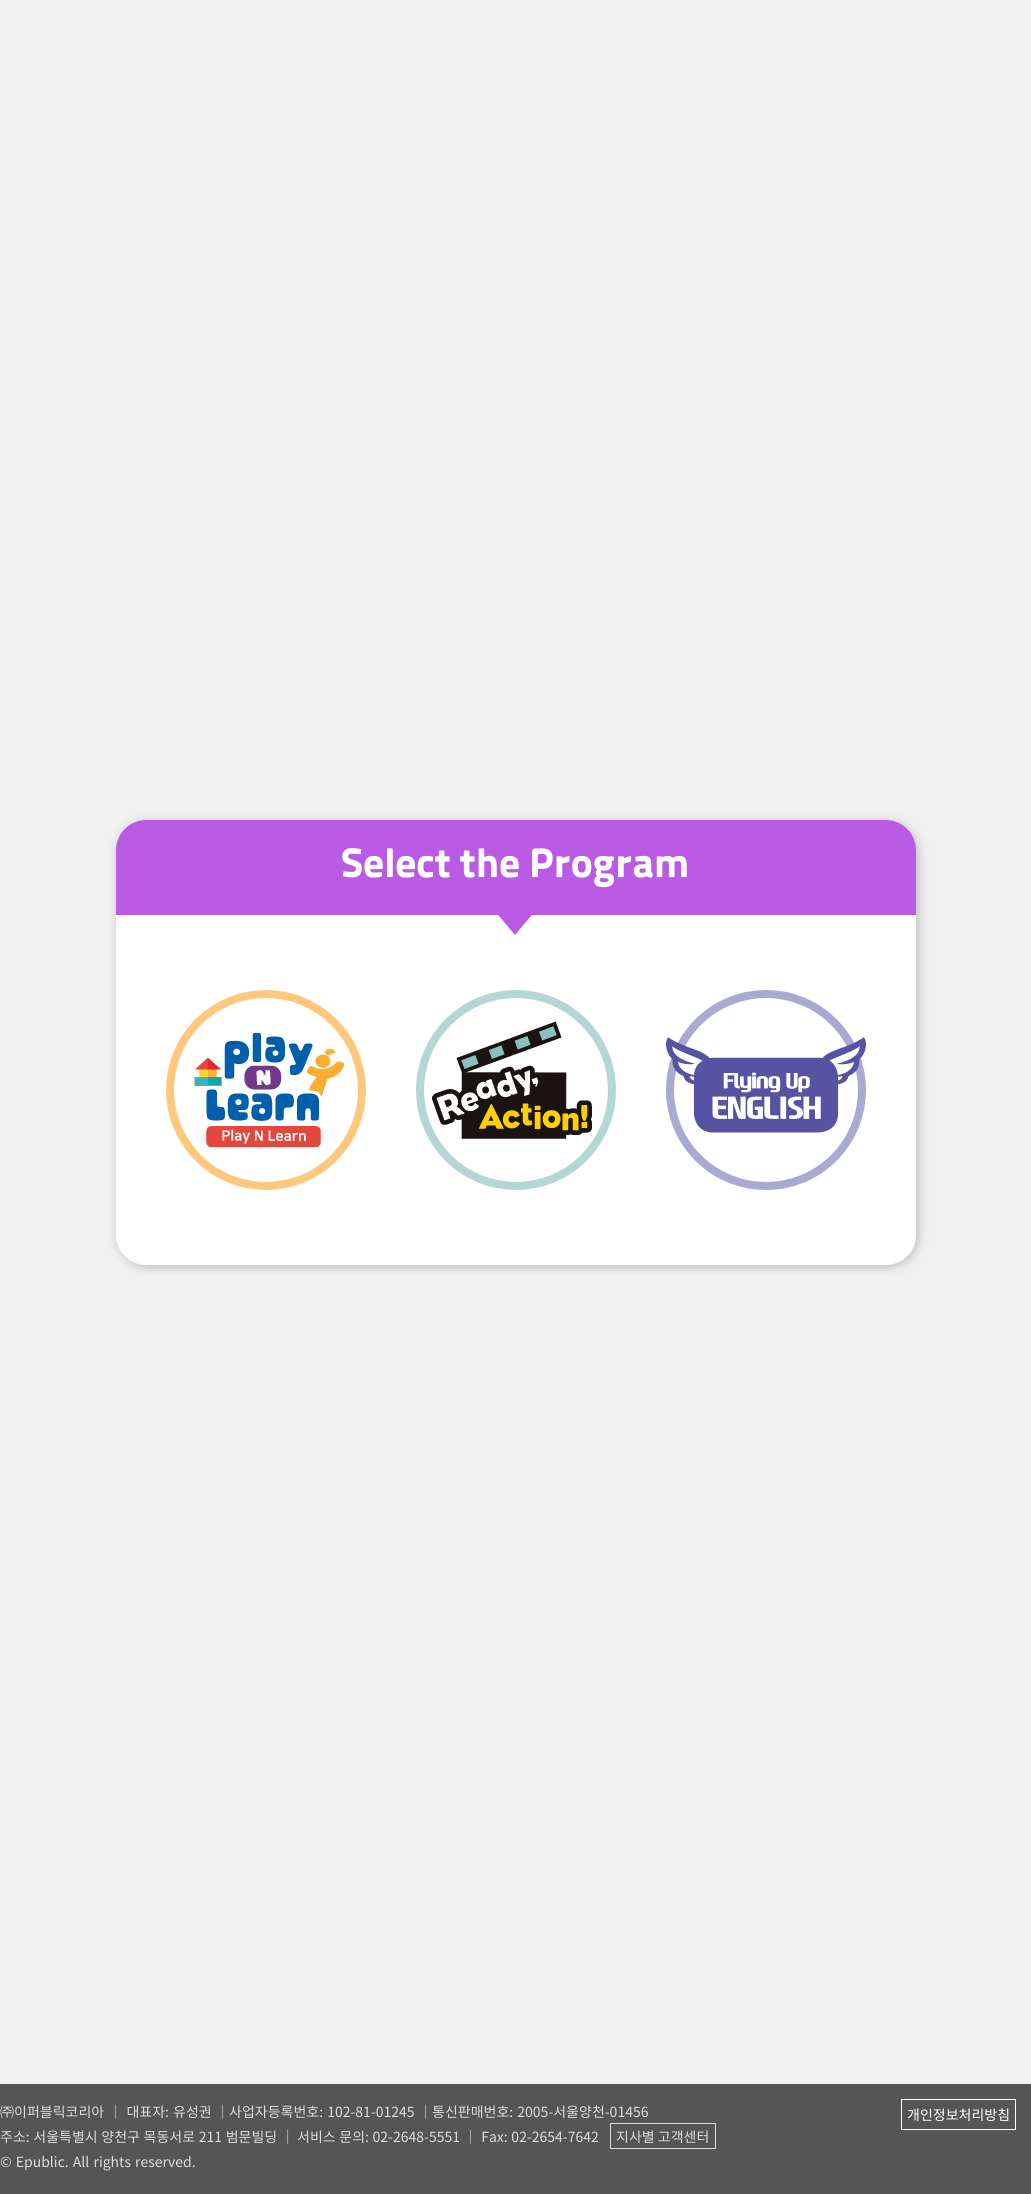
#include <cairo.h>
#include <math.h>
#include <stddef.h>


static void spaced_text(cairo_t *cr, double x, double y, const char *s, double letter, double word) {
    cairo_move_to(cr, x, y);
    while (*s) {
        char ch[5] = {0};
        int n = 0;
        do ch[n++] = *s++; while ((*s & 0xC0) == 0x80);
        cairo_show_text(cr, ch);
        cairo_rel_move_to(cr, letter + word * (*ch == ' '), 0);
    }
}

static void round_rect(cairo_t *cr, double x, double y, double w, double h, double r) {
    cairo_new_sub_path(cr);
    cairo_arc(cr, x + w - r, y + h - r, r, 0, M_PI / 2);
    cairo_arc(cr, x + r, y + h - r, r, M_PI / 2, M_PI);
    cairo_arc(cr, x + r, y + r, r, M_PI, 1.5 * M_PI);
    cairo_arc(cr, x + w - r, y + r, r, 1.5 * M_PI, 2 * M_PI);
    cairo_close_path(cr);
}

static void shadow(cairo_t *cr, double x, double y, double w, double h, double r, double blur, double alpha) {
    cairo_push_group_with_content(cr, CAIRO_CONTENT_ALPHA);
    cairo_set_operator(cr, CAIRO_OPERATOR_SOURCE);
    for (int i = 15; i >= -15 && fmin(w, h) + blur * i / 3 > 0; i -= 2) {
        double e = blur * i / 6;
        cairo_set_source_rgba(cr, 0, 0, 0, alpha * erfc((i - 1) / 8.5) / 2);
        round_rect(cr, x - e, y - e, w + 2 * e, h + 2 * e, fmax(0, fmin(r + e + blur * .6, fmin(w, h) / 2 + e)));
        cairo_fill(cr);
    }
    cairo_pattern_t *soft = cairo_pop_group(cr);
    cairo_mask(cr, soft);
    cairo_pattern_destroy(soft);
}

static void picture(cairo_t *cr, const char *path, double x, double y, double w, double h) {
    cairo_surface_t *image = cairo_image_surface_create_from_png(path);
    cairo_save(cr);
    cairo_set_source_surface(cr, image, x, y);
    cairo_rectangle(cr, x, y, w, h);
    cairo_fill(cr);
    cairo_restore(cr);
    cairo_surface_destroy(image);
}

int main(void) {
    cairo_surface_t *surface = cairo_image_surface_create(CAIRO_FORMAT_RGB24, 1031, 2194);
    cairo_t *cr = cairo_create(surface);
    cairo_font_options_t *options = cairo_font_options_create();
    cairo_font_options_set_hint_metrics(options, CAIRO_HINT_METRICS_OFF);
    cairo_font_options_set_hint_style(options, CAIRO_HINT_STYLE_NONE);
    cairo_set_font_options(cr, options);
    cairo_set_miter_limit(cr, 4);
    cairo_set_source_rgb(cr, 0.945, 0.945, 0.945);
    cairo_paint(cr);
    cairo_set_source_rgb(cr, 0, 0, 0);
    shadow(cr, 117, 821, 802, 447, 31, 5, 0.2);
    cairo_set_source_rgb(cr, 1, 1, 1);
    round_rect(cr, 116, 820, 800, 445, 30);
    cairo_fill(cr);
    cairo_set_source_rgb(cr, 0.729, 0.357, 0.898);
    cairo_new_path(cr);
    cairo_move_to(cr, 146, 820);
    cairo_line_to(cr, 886, 820);
    cairo_curve_to(cr, 902.5, 820, 916, 833.5, 916, 850);
    cairo_line_to(cr, 916, 915);
    cairo_line_to(cr, 116, 915);
    cairo_line_to(cr, 116, 850);
    cairo_curve_to(cr, 116, 833.5, 129.5, 820, 146, 820);
    cairo_close_path(cr);
    cairo_fill(cr);
    cairo_select_font_face(cr, "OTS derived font", CAIRO_FONT_SLANT_NORMAL, CAIRO_FONT_WEIGHT_BOLD);
    cairo_set_font_size(cr, 32);
    cairo_set_source_rgb(cr, 1, 1, 1);
    cairo_move_to(cr, 341, 872);
    cairo_show_text(cr, "Select the Program");
    picture(cr, "img1.png", 498, 915, 34, 20);
    picture(cr, "img2.png", 166, 990, 200, 200);
    picture(cr, "img3.png", 416, 990, 200, 200);
    picture(cr, "img4.png", 666, 990, 200, 200);
    cairo_set_source_rgb(cr, 0.333, 0.333, 0.333);
    cairo_rectangle(cr, 0, 2084, 1031, 110);
    cairo_fill(cr);
    cairo_select_font_face(cr, "Noto Sans KR", CAIRO_FONT_SLANT_NORMAL, CAIRO_FONT_WEIGHT_NORMAL);
    cairo_set_font_size(cr, 14);
    cairo_set_source_rgb(cr, 0.867, 0.867, 0.867);
    spaced_text(cr, 0, 2117, "㈜이퍼블릭코리아 ｜ 대표자: 유성권 ｜", 0, 1);
    spaced_text(cr, 229, 2117, "사업자등록번호: 102-81-01245 ｜", 0, 1);
    spaced_text(cr, 432, 2117, "통신판매번호: 2005-서울양천-01456", 0, 1);
    cairo_rectangle(cr, 901.5, 2099.5, 114, 30);
    cairo_set_source_rgb(cr, 1, 1, 1);
    cairo_set_line_width(cr, 1);
    cairo_stroke(cr);
    cairo_move_to(cr, 907, 2120);
    cairo_show_text(cr, "개인정보처리방침");
    cairo_set_source_rgb(cr, 0.867, 0.867, 0.867);
    spaced_text(cr, 0, 2142, "주소: 서울특별시 양천구 목동서로 211 범문빌딩 ｜", 0, 0.5);
    spaced_text(cr, 297, 2142, "서비스 문의: 02-2648-5551 ｜ Fax: 02-2654-7642", 0, 0.5);
    cairo_rectangle(cr, 610.5, 2123.5, 105, 25);
    cairo_stroke(cr);
    cairo_move_to(cr, 616, 2142);
    cairo_show_text(cr, "지사별 고객센터");
    spaced_text(cr, 0, 2167, "© Epublic. All rights reserved.", 0, 1);
    cairo_surface_write_to_png(surface, "page.png");
    cairo_font_options_destroy(options);
    cairo_destroy(cr);
    cairo_surface_destroy(surface);
    return 0;
}
